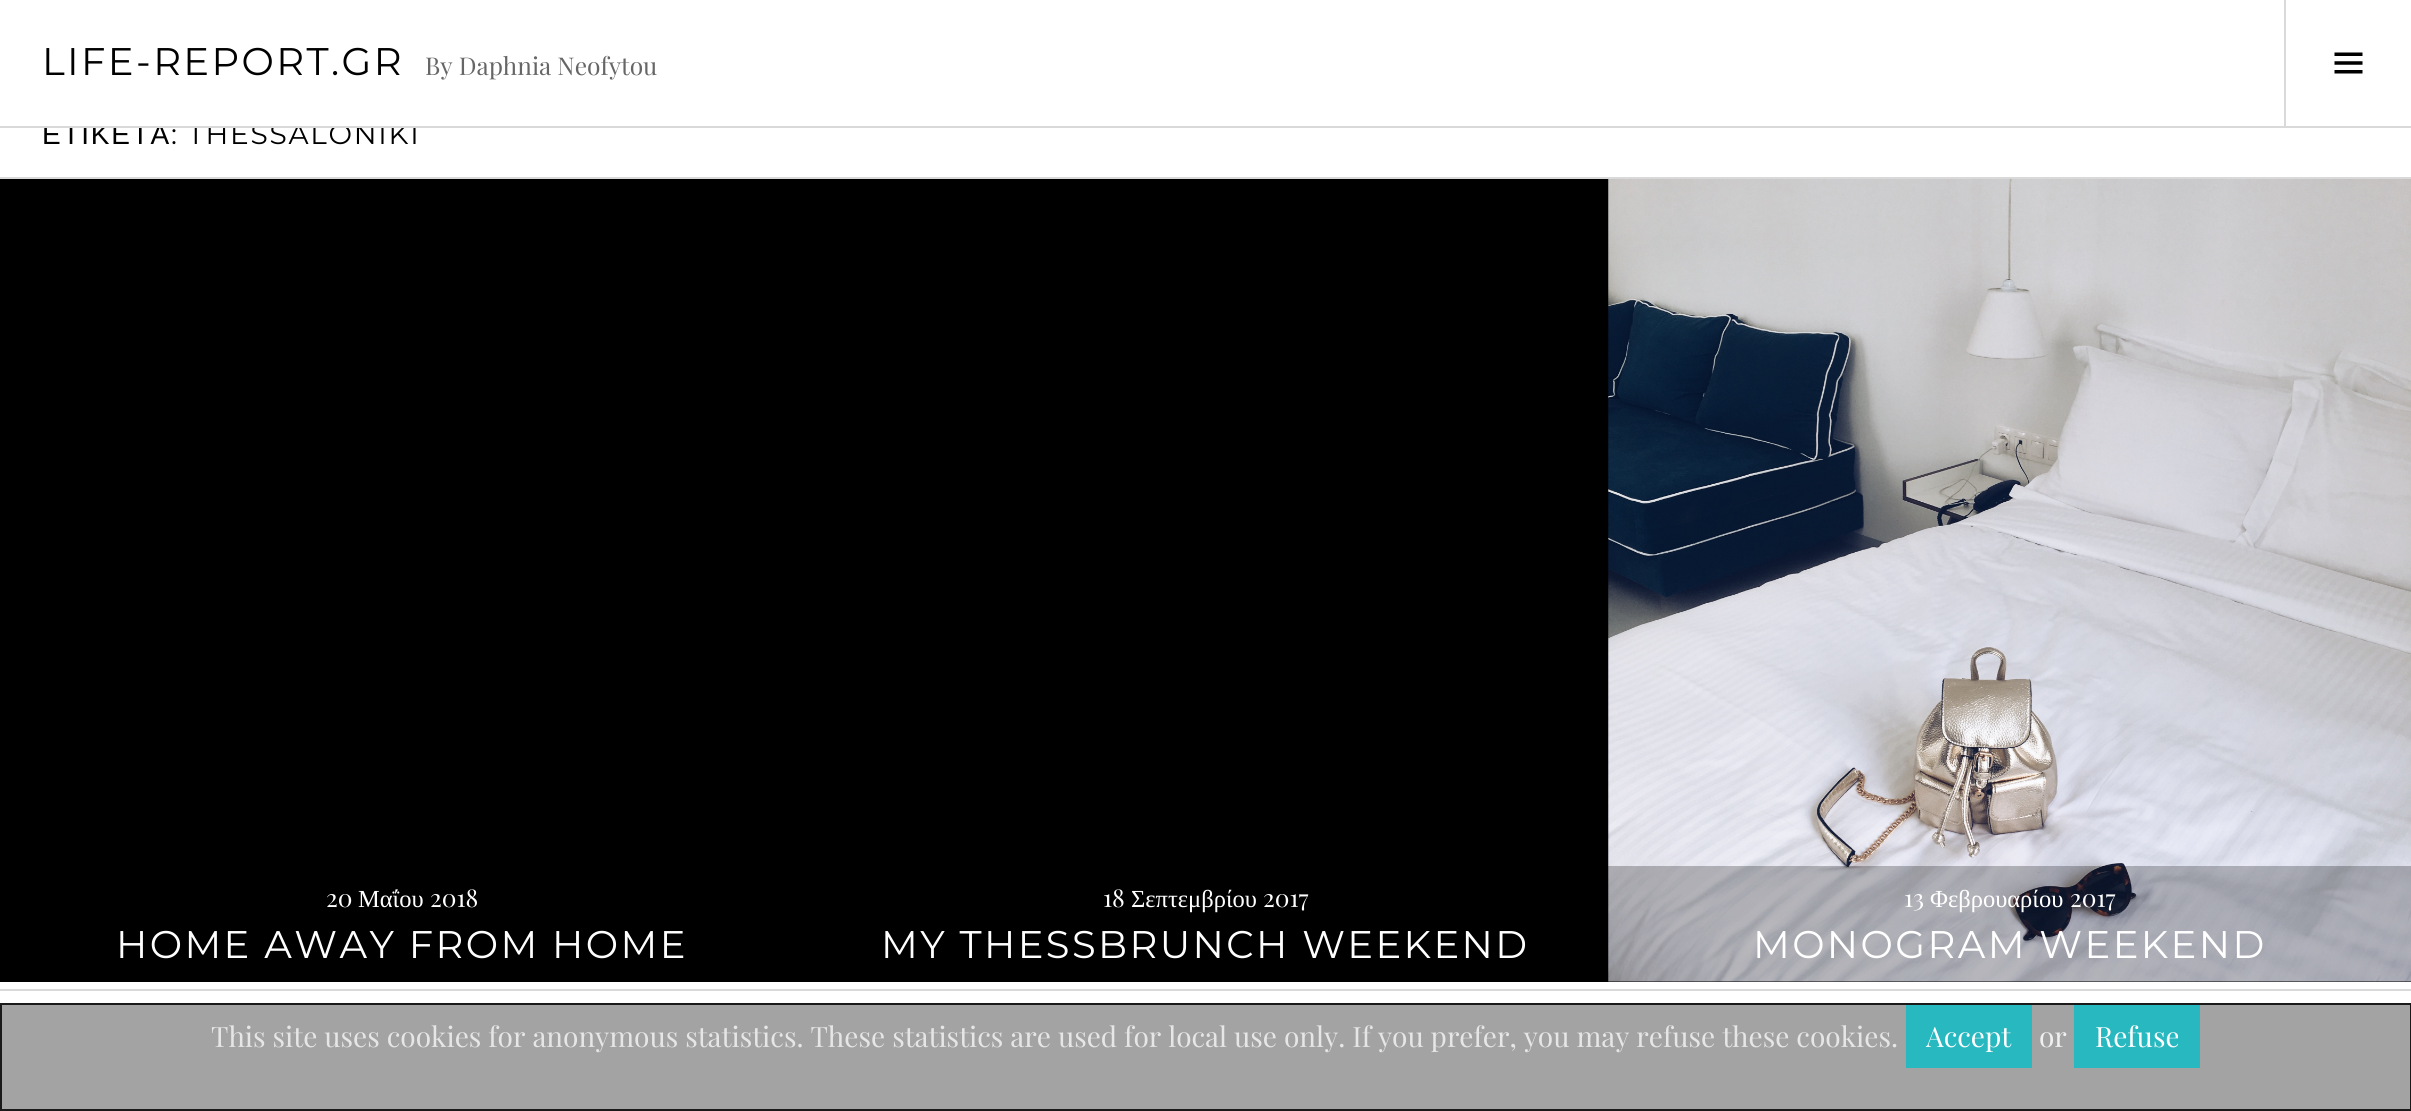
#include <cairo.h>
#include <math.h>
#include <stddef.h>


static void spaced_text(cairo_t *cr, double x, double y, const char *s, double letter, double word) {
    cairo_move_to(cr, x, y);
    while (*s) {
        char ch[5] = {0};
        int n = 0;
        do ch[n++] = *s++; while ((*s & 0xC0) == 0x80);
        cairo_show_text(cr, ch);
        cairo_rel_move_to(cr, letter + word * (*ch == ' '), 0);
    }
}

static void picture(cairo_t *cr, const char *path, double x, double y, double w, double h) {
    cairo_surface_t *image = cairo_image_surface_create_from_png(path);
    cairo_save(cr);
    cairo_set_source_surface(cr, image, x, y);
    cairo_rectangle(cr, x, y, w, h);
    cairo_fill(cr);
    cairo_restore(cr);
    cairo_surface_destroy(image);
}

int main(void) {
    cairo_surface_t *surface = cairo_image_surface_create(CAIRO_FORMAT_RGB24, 2411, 1111);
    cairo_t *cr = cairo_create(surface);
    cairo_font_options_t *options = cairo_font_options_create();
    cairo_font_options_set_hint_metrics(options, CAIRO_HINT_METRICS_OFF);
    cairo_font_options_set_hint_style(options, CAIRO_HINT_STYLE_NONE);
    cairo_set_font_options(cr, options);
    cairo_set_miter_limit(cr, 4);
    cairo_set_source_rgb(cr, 1, 1, 1);
    cairo_paint(cr);
    cairo_select_font_face(cr, "Liberation Sans", CAIRO_FONT_SLANT_NORMAL, CAIRO_FONT_WEIGHT_NORMAL);
    cairo_set_font_size(cr, 28);
    cairo_set_source_rgb(cr, 0, 0, 0);
    spaced_text(cr, 42, 144, "ΕΤΙΚΕΤΑ", 1.75, 0);
    cairo_select_font_face(cr, "Montserrat", CAIRO_FONT_SLANT_NORMAL, CAIRO_FONT_WEIGHT_NORMAL);
    spaced_text(cr, 171, 144, ": THESSALONIKI", 1.75, 0);
    cairo_set_source_rgb(cr, 1, 1, 1);
    cairo_rectangle(cr, 44, 124, 372, 2);
    cairo_fill(cr);
    cairo_set_source_rgb(cr, 0.851, 0.851, 0.851);
    cairo_rectangle(cr, 0, 126, 2411, 2);
    cairo_fill(cr);
    cairo_set_font_size(cr, 38.5);
    cairo_set_source_rgb(cr, 0, 0, 0);
    spaced_text(cr, 42, 75, "LIFE-REPORT.GR", 2.4, 0);
    cairo_select_font_face(cr, "Playfair Display", CAIRO_FONT_SLANT_NORMAL, CAIRO_FONT_WEIGHT_NORMAL);
    cairo_set_font_size(cr, 24.5);
    cairo_set_source_rgb(cr, 0.4, 0.4, 0.4);
    cairo_move_to(cr, 425, 75);
    cairo_show_text(cr, "By Daphnia Neofytou");
    cairo_set_source_rgb(cr, 0.851, 0.851, 0.851);
    cairo_rectangle(cr, 2284, 0, 2, 126);
    cairo_fill(cr);
    picture(cr, "img1.png", 2334, 52, 29, 22);
    cairo_rectangle(cr, 0, 177, 2411, 2);
    cairo_fill(cr);
    cairo_set_source_rgb(cr, 0, 0, 0);
    cairo_rectangle(cr, 0, 179, 2411, 803);
    cairo_fill(cr);
    cairo_set_source_rgb(cr, 1, 1, 1);
    cairo_move_to(cr, 326, 907);
    cairo_show_text(cr, "20");
    cairo_select_font_face(cr, "Liberation Serif", CAIRO_FONT_SLANT_NORMAL, CAIRO_FONT_WEIGHT_NORMAL);
    cairo_move_to(cr, 358, 907);
    cairo_show_text(cr, "Μαΐου");
    cairo_select_font_face(cr, "Playfair Display", CAIRO_FONT_SLANT_NORMAL, CAIRO_FONT_WEIGHT_NORMAL);
    cairo_move_to(cr, 430, 907);
    cairo_show_text(cr, "2018");
    cairo_select_font_face(cr, "Montserrat", CAIRO_FONT_SLANT_NORMAL, CAIRO_FONT_WEIGHT_NORMAL);
    cairo_set_font_size(cr, 38.5);
    spaced_text(cr, 116, 958, "HOME AWAY FROM HOME", 2.4, 0);
    cairo_select_font_face(cr, "Playfair Display", CAIRO_FONT_SLANT_NORMAL, CAIRO_FONT_WEIGHT_NORMAL);
    cairo_set_font_size(cr, 24.5);
    cairo_move_to(cr, 1103, 907);
    cairo_show_text(cr, "18");
    cairo_select_font_face(cr, "Liberation Serif", CAIRO_FONT_SLANT_NORMAL, CAIRO_FONT_WEIGHT_NORMAL);
    cairo_move_to(cr, 1131, 907);
    cairo_show_text(cr, "Σεπτεμβρίου");
    cairo_select_font_face(cr, "Playfair Display", CAIRO_FONT_SLANT_NORMAL, CAIRO_FONT_WEIGHT_NORMAL);
    cairo_move_to(cr, 1263, 907);
    cairo_show_text(cr, "2017");
    cairo_select_font_face(cr, "Montserrat", CAIRO_FONT_SLANT_NORMAL, CAIRO_FONT_WEIGHT_NORMAL);
    cairo_set_font_size(cr, 38.5);
    spaced_text(cr, 881, 958, "MY THESSBRUNCH WEEKEND", 2.4, 0);
    picture(cr, "img2.png", 1608, 179, 803, 803);
    cairo_set_source_rgba(cr, 0, 0, 0, 0.25);
    cairo_rectangle(cr, 1608, 866, 803, 116);
    cairo_fill(cr);
    cairo_select_font_face(cr, "Playfair Display", CAIRO_FONT_SLANT_NORMAL, CAIRO_FONT_WEIGHT_NORMAL);
    cairo_set_font_size(cr, 24.5);
    cairo_set_source_rgb(cr, 1, 1, 1);
    cairo_move_to(cr, 1904, 907);
    cairo_show_text(cr, "13");
    cairo_select_font_face(cr, "Liberation Serif", CAIRO_FONT_SLANT_NORMAL, CAIRO_FONT_WEIGHT_NORMAL);
    cairo_move_to(cr, 1930, 907);
    cairo_show_text(cr, "Φεβρουαρίου");
    cairo_select_font_face(cr, "Playfair Display", CAIRO_FONT_SLANT_NORMAL, CAIRO_FONT_WEIGHT_NORMAL);
    cairo_move_to(cr, 2070, 907);
    cairo_show_text(cr, "2017");
    cairo_select_font_face(cr, "Montserrat", CAIRO_FONT_SLANT_NORMAL, CAIRO_FONT_WEIGHT_NORMAL);
    cairo_set_font_size(cr, 38.5);
    spaced_text(cr, 1753, 958, "MONOGRAM WEEKEND", 2.4, 0);
    cairo_set_source_rgb(cr, 0.851, 0.851, 0.851);
    cairo_rectangle(cr, 0, 989, 2411, 2);
    cairo_fill(cr);
    cairo_set_source_rgb(cr, 0.639, 0.639, 0.639);
    cairo_rectangle(cr, 1, 1004, 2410, 106);
    cairo_fill_preserve(cr);
    cairo_set_source_rgb(cr, 0.102, 0.102, 0.102);
    cairo_stroke(cr);
    cairo_select_font_face(cr, "Playfair Display", CAIRO_FONT_SLANT_NORMAL, CAIRO_FONT_WEIGHT_NORMAL);
    cairo_set_font_size(cr, 28);
    cairo_set_source_rgb(cr, 0.902, 0.902, 0.902);
    cairo_move_to(cr, 211, 1047);
    cairo_show_text(cr, "This site uses cookies for anonymous statistics. These statistics are used for local use only. If you prefer, you may refuse these cookies.");
    cairo_set_source_rgb(cr, 0.157, 0.722, 0.749);
    cairo_rectangle(cr, 1906, 1005, 126, 63);
    cairo_fill(cr);
    cairo_set_source_rgb(cr, 1, 1, 1);
    cairo_move_to(cr, 1926, 1047);
    cairo_show_text(cr, "Accept");
    cairo_set_source_rgb(cr, 0.941, 0.941, 0.941);
    cairo_move_to(cr, 2039, 1047);
    cairo_show_text(cr, "or");
    cairo_set_source_rgb(cr, 0.157, 0.722, 0.749);
    cairo_rectangle(cr, 2074, 1005, 126, 63);
    cairo_fill(cr);
    cairo_set_source_rgb(cr, 1, 1, 1);
    cairo_move_to(cr, 2095, 1047);
    cairo_show_text(cr, "Refuse");
    cairo_surface_write_to_png(surface, "page.png");
    cairo_font_options_destroy(options);
    cairo_destroy(cr);
    cairo_surface_destroy(surface);
    return 0;
}
